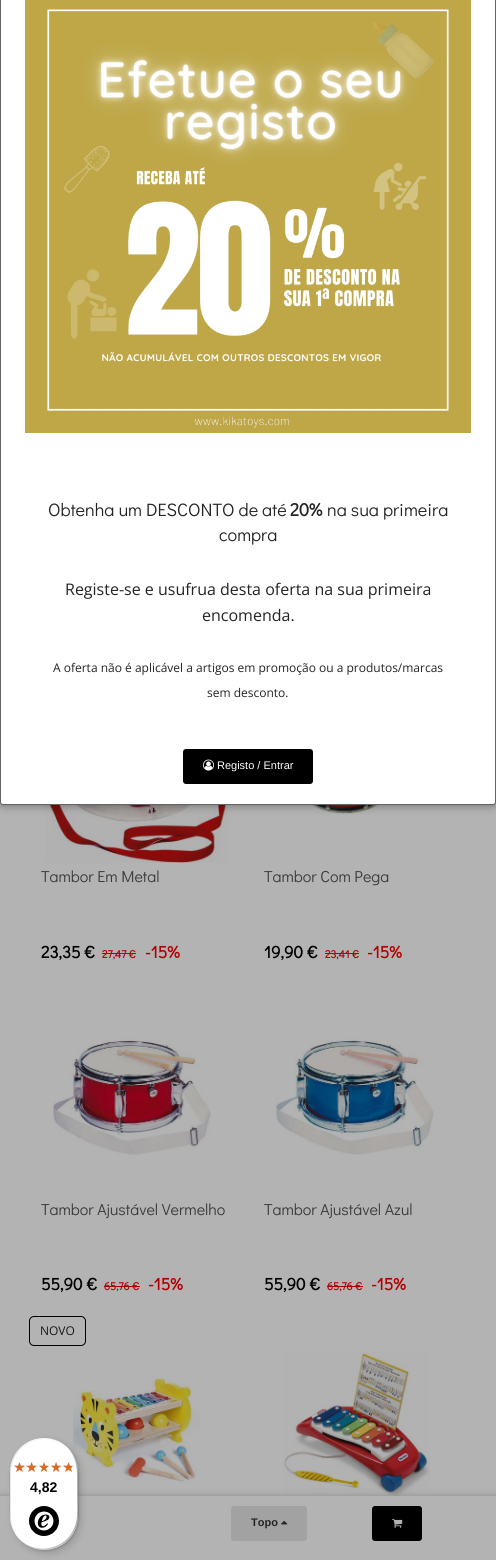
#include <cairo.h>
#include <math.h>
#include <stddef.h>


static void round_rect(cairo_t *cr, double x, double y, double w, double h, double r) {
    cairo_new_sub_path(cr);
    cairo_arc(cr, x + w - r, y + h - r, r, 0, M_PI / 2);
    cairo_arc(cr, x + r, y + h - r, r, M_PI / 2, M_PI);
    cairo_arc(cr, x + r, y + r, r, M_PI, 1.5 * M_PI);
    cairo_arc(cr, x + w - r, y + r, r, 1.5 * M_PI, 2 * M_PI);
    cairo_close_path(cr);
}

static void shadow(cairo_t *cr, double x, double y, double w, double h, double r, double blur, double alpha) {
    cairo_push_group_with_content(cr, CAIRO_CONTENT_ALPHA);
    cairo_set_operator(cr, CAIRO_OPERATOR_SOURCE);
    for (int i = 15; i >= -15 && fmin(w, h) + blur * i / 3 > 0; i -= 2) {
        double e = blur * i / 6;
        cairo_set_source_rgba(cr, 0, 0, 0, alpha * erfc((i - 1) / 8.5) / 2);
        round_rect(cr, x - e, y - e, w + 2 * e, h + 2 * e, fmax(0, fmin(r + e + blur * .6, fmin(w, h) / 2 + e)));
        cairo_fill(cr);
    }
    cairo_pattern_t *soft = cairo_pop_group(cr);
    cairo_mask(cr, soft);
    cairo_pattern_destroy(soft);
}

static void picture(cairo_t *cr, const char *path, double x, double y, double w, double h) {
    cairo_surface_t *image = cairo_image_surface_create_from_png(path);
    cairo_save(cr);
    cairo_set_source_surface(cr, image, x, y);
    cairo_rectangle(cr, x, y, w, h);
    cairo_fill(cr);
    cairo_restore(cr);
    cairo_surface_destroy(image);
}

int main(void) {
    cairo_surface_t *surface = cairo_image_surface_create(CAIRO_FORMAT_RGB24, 496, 1560);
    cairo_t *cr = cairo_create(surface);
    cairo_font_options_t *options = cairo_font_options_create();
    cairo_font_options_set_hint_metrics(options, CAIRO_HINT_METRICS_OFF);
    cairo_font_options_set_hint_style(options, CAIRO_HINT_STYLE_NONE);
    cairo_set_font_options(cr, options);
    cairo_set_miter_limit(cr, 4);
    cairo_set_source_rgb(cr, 0.702, 0.702, 0.702);
    cairo_paint(cr);
    picture(cr, "img3.png", 45, 805, 183, 58);
    picture(cr, "img4.png", 294, 805, 115, 9);
    cairo_set_source_rgb(cr, 0, 0, 0);
    shadow(cr, 0, -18, 496, 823, 3, 5, 0.4);
    cairo_set_source_rgb(cr, 1, 1, 1);
    round_rect(cr, 0.5, -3.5, 495, 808, 2.5);
    cairo_fill_preserve(cr);
    cairo_set_source_rgb(cr, 0.4, 0.4, 0.4);
    cairo_set_line_width(cr, 1);
    cairo_stroke(cr);
    picture(cr, "img1.png", 25, 0, 446, 433);
    cairo_select_font_face(cr, "Didact Gothic", CAIRO_FONT_SLANT_NORMAL, CAIRO_FONT_WEIGHT_NORMAL);
    cairo_set_font_size(cr, 18);
    cairo_set_source_rgb(cr, 0.141, 0.141, 0.141);
    cairo_move_to(cr, 48, 516);
    cairo_show_text(cr, "Obtenha um DESCONTO de até");
    cairo_select_font_face(cr, "Didact Gothic", CAIRO_FONT_SLANT_NORMAL, CAIRO_FONT_WEIGHT_BOLD);
    cairo_move_to(cr, 290, 516);
    cairo_show_text(cr, "20%");
    cairo_select_font_face(cr, "Didact Gothic", CAIRO_FONT_SLANT_NORMAL, CAIRO_FONT_WEIGHT_NORMAL);
    cairo_move_to(cr, 327, 516);
    cairo_show_text(cr, "na sua primeira");
    cairo_move_to(cr, 219, 541);
    cairo_show_text(cr, "compra");
    cairo_select_font_face(cr, "Open Sans", CAIRO_FONT_SLANT_NORMAL, CAIRO_FONT_WEIGHT_NORMAL);
    cairo_set_font_size(cr, 16);
    cairo_move_to(cr, 65, 595);
    cairo_show_text(cr, "Registe-se e usufrua desta oferta na sua primeira");
    cairo_move_to(cr, 202, 621);
    cairo_show_text(cr, "encomenda.");
    cairo_set_font_size(cr, 12);
    cairo_move_to(cr, 53, 672);
    cairo_show_text(cr, "A oferta não é aplicável a artigos em promoção ou a produtos/marcas");
    cairo_move_to(cr, 207, 697);
    cairo_show_text(cr, "sem desconto.");
    cairo_set_source_rgb(cr, 0, 0, 0);
    round_rect(cr, 183, 749, 130, 35, 3);
    cairo_fill(cr);
    picture(cr, "img2.png", 203, 759, 11, 12);
    cairo_select_font_face(cr, "Liberation Sans", CAIRO_FONT_SLANT_NORMAL, CAIRO_FONT_WEIGHT_NORMAL);
    cairo_set_font_size(cr, 11);
    cairo_set_source_rgb(cr, 1, 1, 1);
    cairo_move_to(cr, 217, 769);
    cairo_show_text(cr, "Registo / Entrar");
    cairo_select_font_face(cr, "Didact Gothic", CAIRO_FONT_SLANT_NORMAL, CAIRO_FONT_WEIGHT_NORMAL);
    cairo_set_font_size(cr, 16);
    cairo_set_source_rgb(cr, 0.231, 0.231, 0.231);
    cairo_move_to(cr, 41, 882);
    cairo_show_text(cr, "Tambor Em Metal");
    cairo_select_font_face(cr, "Didact Gothic", CAIRO_FONT_SLANT_NORMAL, CAIRO_FONT_WEIGHT_BOLD);
    cairo_set_font_size(cr, 17);
    cairo_set_source_rgb(cr, 0, 0, 0);
    cairo_move_to(cr, 41, 958);
    cairo_show_text(cr, "23,35 €");
    cairo_set_font_size(cr, 11);
    cairo_set_source_rgb(cr, 0.702, 0, 0);
    cairo_move_to(cr, 102, 958);
    cairo_show_text(cr, "27,47 €");
    cairo_rectangle(cr, 102, 953, 34, 1);
    cairo_fill(cr);
    cairo_set_font_size(cr, 17);
    cairo_move_to(cr, 145, 958);
    cairo_show_text(cr, "-15%");
    cairo_select_font_face(cr, "Didact Gothic", CAIRO_FONT_SLANT_NORMAL, CAIRO_FONT_WEIGHT_NORMAL);
    cairo_set_font_size(cr, 16);
    cairo_set_source_rgb(cr, 0.231, 0.231, 0.231);
    cairo_move_to(cr, 264, 882);
    cairo_show_text(cr, "Tambor Com Pega");
    cairo_select_font_face(cr, "Didact Gothic", CAIRO_FONT_SLANT_NORMAL, CAIRO_FONT_WEIGHT_BOLD);
    cairo_set_font_size(cr, 17);
    cairo_set_source_rgb(cr, 0, 0, 0);
    cairo_move_to(cr, 264, 958);
    cairo_show_text(cr, "19,90 €");
    cairo_set_font_size(cr, 11);
    cairo_set_source_rgb(cr, 0.702, 0, 0);
    cairo_move_to(cr, 325, 958);
    cairo_show_text(cr, "23,41 €");
    cairo_rectangle(cr, 325, 953, 34, 1);
    cairo_fill(cr);
    cairo_set_font_size(cr, 17);
    cairo_move_to(cr, 367, 958);
    cairo_show_text(cr, "-15%");
    picture(cr, "img5.png", 53, 1038, 158, 117);
    cairo_select_font_face(cr, "Didact Gothic", CAIRO_FONT_SLANT_NORMAL, CAIRO_FONT_WEIGHT_NORMAL);
    cairo_set_font_size(cr, 16);
    cairo_set_source_rgb(cr, 0.231, 0.231, 0.231);
    cairo_move_to(cr, 41, 1215);
    cairo_show_text(cr, "Tambor Ajustável Vermelho");
    cairo_select_font_face(cr, "Didact Gothic", CAIRO_FONT_SLANT_NORMAL, CAIRO_FONT_WEIGHT_BOLD);
    cairo_set_font_size(cr, 17);
    cairo_set_source_rgb(cr, 0, 0, 0);
    cairo_move_to(cr, 41, 1290);
    cairo_show_text(cr, "55,90 €");
    cairo_set_font_size(cr, 11);
    cairo_set_source_rgb(cr, 0.702, 0, 0);
    cairo_move_to(cr, 104, 1290);
    cairo_show_text(cr, "65,76 €");
    cairo_rectangle(cr, 104, 1286, 36, 1);
    cairo_fill(cr);
    cairo_set_font_size(cr, 17);
    cairo_move_to(cr, 148, 1290);
    cairo_show_text(cr, "-15%");
    picture(cr, "img6.png", 272, 1038, 162, 117);
    cairo_select_font_face(cr, "Didact Gothic", CAIRO_FONT_SLANT_NORMAL, CAIRO_FONT_WEIGHT_NORMAL);
    cairo_set_font_size(cr, 16);
    cairo_set_source_rgb(cr, 0.231, 0.231, 0.231);
    cairo_move_to(cr, 264, 1215);
    cairo_show_text(cr, "Tambor Ajustável Azul");
    cairo_select_font_face(cr, "Didact Gothic", CAIRO_FONT_SLANT_NORMAL, CAIRO_FONT_WEIGHT_BOLD);
    cairo_set_font_size(cr, 17);
    cairo_set_source_rgb(cr, 0, 0, 0);
    cairo_move_to(cr, 264, 1290);
    cairo_show_text(cr, "55,90 €");
    cairo_set_font_size(cr, 11);
    cairo_set_source_rgb(cr, 0.702, 0, 0);
    cairo_move_to(cr, 327, 1290);
    cairo_show_text(cr, "65,76 €");
    cairo_rectangle(cr, 327, 1286, 36, 1);
    cairo_fill(cr);
    cairo_set_font_size(cr, 17);
    cairo_move_to(cr, 371, 1290);
    cairo_show_text(cr, "-15%");
    round_rect(cr, 29.5, 1316.5, 56, 29, 4.5);
    cairo_set_source_rgb(cr, 0, 0, 0);
    cairo_stroke(cr);
    cairo_select_font_face(cr, "Open Sans", CAIRO_FONT_SLANT_NORMAL, CAIRO_FONT_WEIGHT_NORMAL);
    cairo_set_font_size(cr, 12);
    cairo_set_source_rgb(cr, 0.094, 0.094, 0.094);
    cairo_move_to(cr, 40, 1335);
    cairo_show_text(cr, "NOVO");
    picture(cr, "img7.png", 73, 1377, 127, 106);
    picture(cr, "img8.png", 283, 1352, 147, 144);
    cairo_set_source_rgb(cr, 0.561, 0.561, 0.561);
    shadow(cr, 0, 1496, 496, 64, 0, 3.5, 1);
    cairo_set_source_rgb(cr, 0.702, 0.702, 0.702);
    cairo_rectangle(cr, 0, 1496, 496, 64);
    cairo_fill(cr);
    cairo_set_source_rgb(cr, 0, 0, 0);
    shadow(cr, 13, 1441, 68, 112, 34, 4, 0.15);
    shadow(cr, 11, 1439, 68, 112, 34, 1, 0.15);
    cairo_set_source_rgb(cr, 1, 1, 1);
    round_rect(cr, 10, 1438, 68, 112, 34);
    cairo_fill(cr);
    cairo_set_source_rgba(cr, 0, 0, 0, 0.1);
    cairo_new_path(cr);
    cairo_move_to(cr, 45, 1439);
    cairo_curve_to(cr, 53, 1439, 61, 1442, 67, 1447);
    cairo_curve_to(cr, 50, 1432, 22, 1438, 13, 1459);
    cairo_curve_to(cr, 8, 1469, 10, 1483, 10, 1494);
    cairo_curve_to(cr, 10, 1509, 7, 1526, 19, 1539);
    cairo_curve_to(cr, 14, 1533, 11, 1525, 11, 1517);
    cairo_line_to(cr, 11, 1473);
    cairo_curve_to(cr, 11, 1454, 26, 1439, 45, 1439);
    cairo_close_path(cr);
    cairo_fill(cr);
    cairo_set_source_rgba(cr, 0, 0, 0, 0.2);
    cairo_new_path(cr);
    cairo_move_to(cr, 21, 1541);
    cairo_curve_to(cr, 38, 1556, 66, 1550, 75, 1529);
    cairo_curve_to(cr, 80, 1519, 78, 1505, 78, 1494);
    cairo_curve_to(cr, 78, 1479, 81, 1462, 69, 1449);
    cairo_curve_to(cr, 79, 1462, 77, 1478, 77, 1493);
    cairo_curve_to(cr, 77, 1504, 79, 1518, 74, 1528);
    cairo_curve_to(cr, 66, 1549, 38, 1555, 21, 1541);
    cairo_close_path(cr);
    cairo_fill(cr);
    cairo_set_source_rgba(cr, 0.196, 0.196, 0.196, 0.2);
    cairo_new_path(cr);
    cairo_move_to(cr, 17, 1537);
    cairo_curve_to(cr, 24, 1545, 33, 1550, 44, 1550);
    cairo_curve_to(cr, 63, 1550, 78, 1535, 78, 1516);
    cairo_line_to(cr, 78, 1472);
    cairo_curve_to(cr, 78, 1461, 73, 1452, 65, 1445);
    cairo_curve_to(cr, 72, 1452, 77, 1461, 77, 1471);
    cairo_line_to(cr, 77, 1515);
    cairo_curve_to(cr, 77, 1534, 62, 1549, 43, 1549);
    cairo_curve_to(cr, 33, 1549, 24, 1544, 17, 1537);
    cairo_close_path(cr);
    cairo_fill(cr);
    cairo_set_source_rgba(cr, 1, 1, 1, 0.3);
    cairo_set_fill_rule(cr, CAIRO_FILL_RULE_EVEN_ODD);
    cairo_new_path(cr);
    cairo_move_to(cr, 44, 1438);
    cairo_curve_to(cr, 63, 1438, 78, 1453, 78, 1472);
    cairo_curve_to(cr, 78, 1453, 62, 1438, 44, 1438);
    cairo_close_path(cr);
    cairo_move_to(cr, 78, 1516);
    cairo_curve_to(cr, 78, 1534, 62, 1550, 44, 1550);
    cairo_curve_to(cr, 63, 1550, 78, 1535, 78, 1516);
    cairo_close_path(cr);
    cairo_fill(cr);
    picture(cr, "img9.png", 14, 1462, 11, 10);
    picture(cr, "img10.png", 27, 1462, 10, 10);
    picture(cr, "img11.png", 39, 1462, 10, 10);
    picture(cr, "img12.png", 51, 1462, 11, 10);
    picture(cr, "img12.png", 63, 1462, 11, 10);
    picture(cr, "img13.png", 14, 1462, 11, 10);
    picture(cr, "img14.png", 26, 1462, 11, 10);
    picture(cr, "img15.png", 39, 1462, 10, 10);
    picture(cr, "img16.png", 51, 1462, 10, 10);
    picture(cr, "img17.png", 63, 1462, 9, 10);
    cairo_select_font_face(cr, "Liberation Sans", CAIRO_FONT_SLANT_NORMAL, CAIRO_FONT_WEIGHT_BOLD);
    cairo_set_font_size(cr, 14);
    cairo_set_source_rgb(cr, 0, 0, 0);
    cairo_move_to(cr, 30, 1492);
    cairo_show_text(cr, "4,82");
    picture(cr, "img18.png", 29, 1506, 30, 30);
    cairo_set_source_rgb(cr, 0.635, 0.635, 0.635);
    round_rect(cr, 231, 1506, 76, 35, 3);
    cairo_fill(cr);
    cairo_set_font_size(cr, 11);
    cairo_set_source_rgb(cr, 0.141, 0.141, 0.141);
    cairo_move_to(cr, 251, 1526);
    cairo_show_text(cr, "Topo");
    picture(cr, "img19.png", 281, 1520, 7, 5);
    cairo_set_source_rgb(cr, 0, 0, 0);
    round_rect(cr, 372, 1506, 50, 35, 3);
    cairo_fill(cr);
    picture(cr, "img20.png", 392, 1519, 11, 9);
    cairo_surface_write_to_png(surface, "page.png");
    cairo_font_options_destroy(options);
    cairo_destroy(cr);
    cairo_surface_destroy(surface);
    return 0;
}
